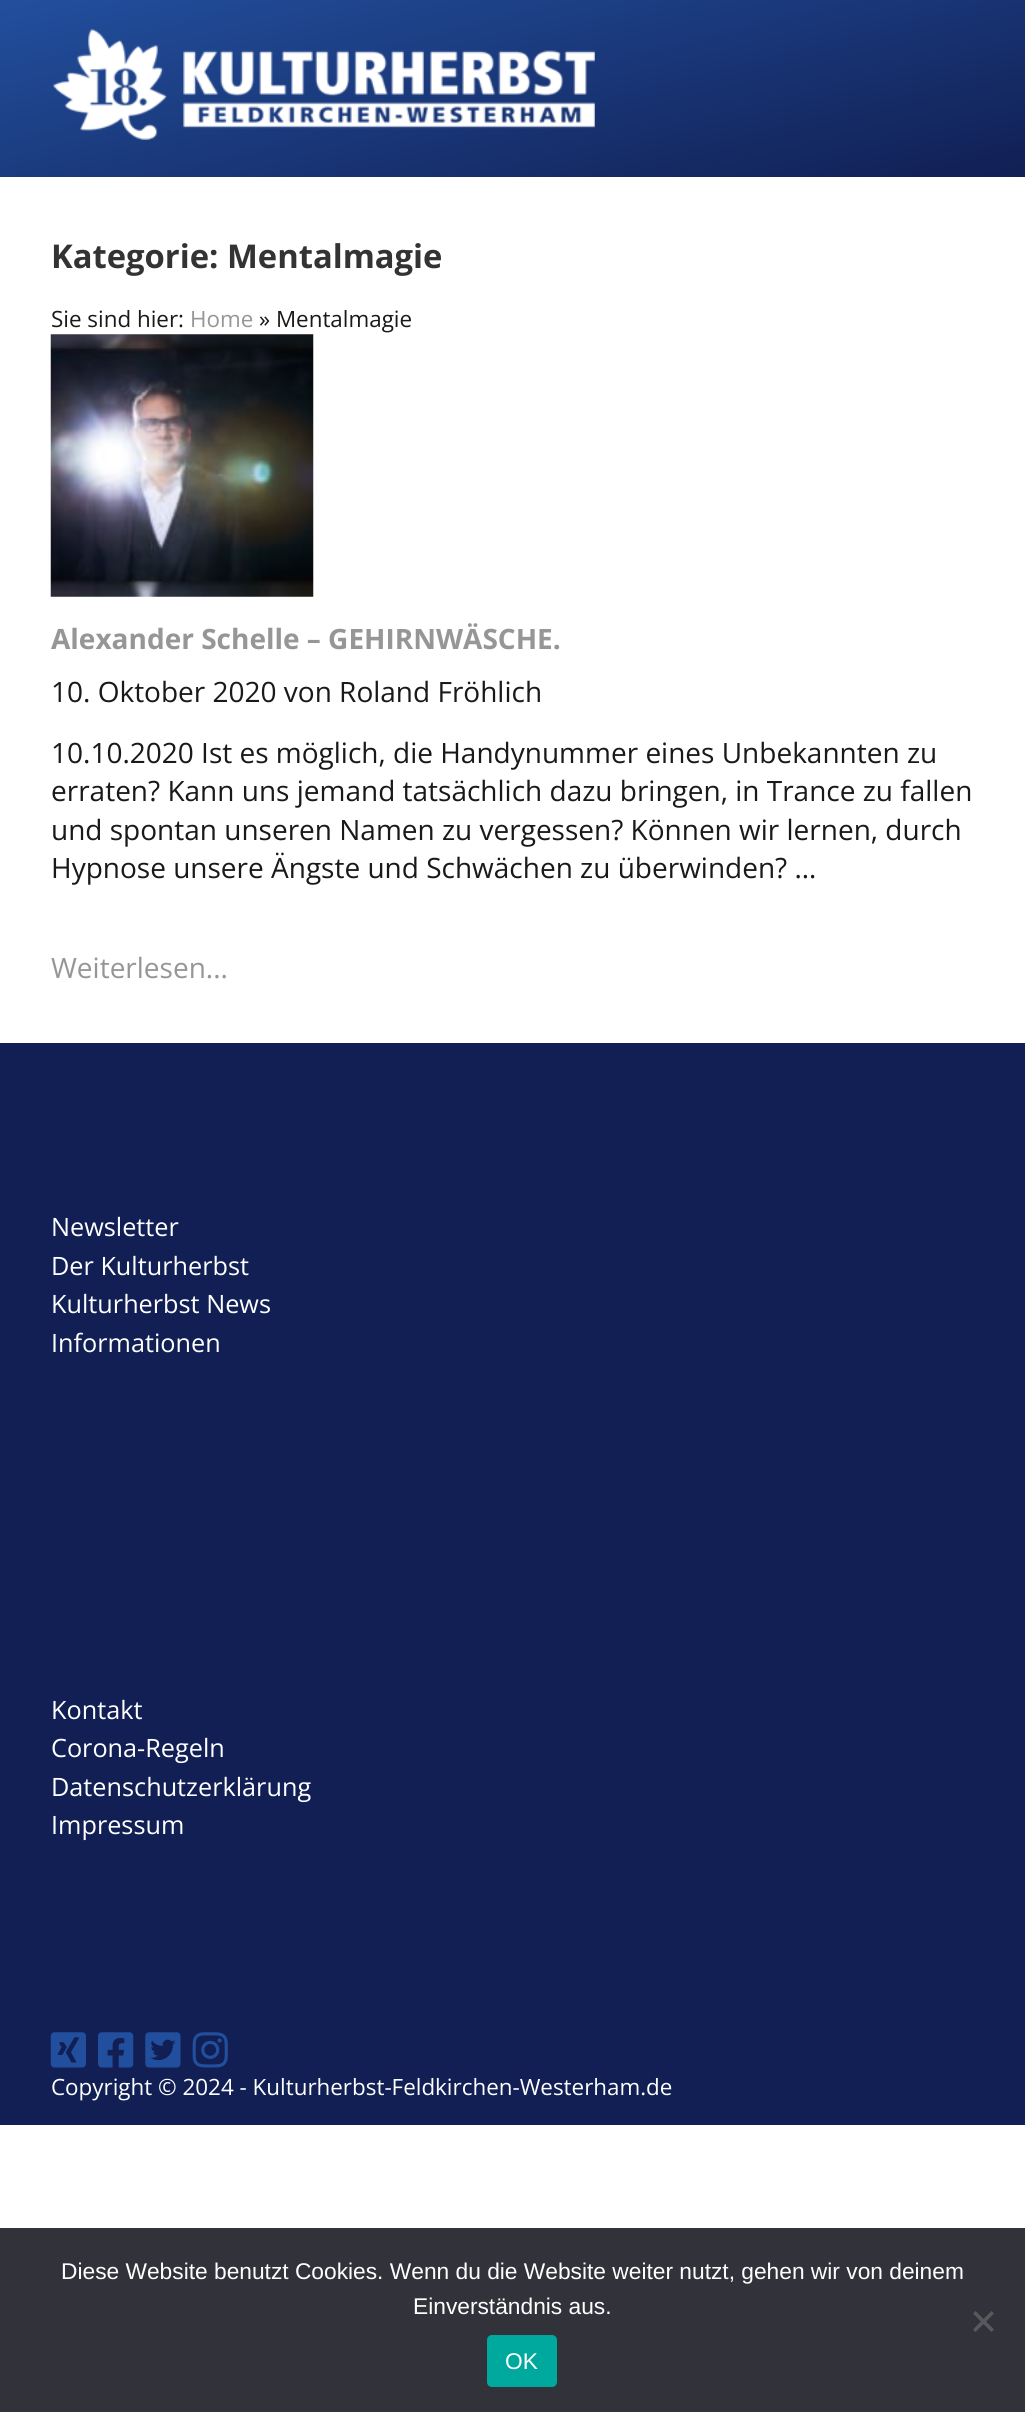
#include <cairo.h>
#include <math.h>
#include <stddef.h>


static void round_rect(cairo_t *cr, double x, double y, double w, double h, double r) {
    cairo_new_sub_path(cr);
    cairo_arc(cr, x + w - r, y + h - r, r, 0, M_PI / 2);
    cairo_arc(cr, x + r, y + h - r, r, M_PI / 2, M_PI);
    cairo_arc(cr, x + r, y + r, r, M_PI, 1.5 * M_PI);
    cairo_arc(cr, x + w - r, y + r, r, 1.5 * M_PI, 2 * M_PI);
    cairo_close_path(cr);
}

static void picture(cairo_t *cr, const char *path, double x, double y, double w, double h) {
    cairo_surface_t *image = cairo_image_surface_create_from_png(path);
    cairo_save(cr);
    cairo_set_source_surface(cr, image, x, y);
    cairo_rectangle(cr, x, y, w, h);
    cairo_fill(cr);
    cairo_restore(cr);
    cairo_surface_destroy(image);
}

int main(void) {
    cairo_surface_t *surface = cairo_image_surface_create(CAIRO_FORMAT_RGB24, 1025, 2412);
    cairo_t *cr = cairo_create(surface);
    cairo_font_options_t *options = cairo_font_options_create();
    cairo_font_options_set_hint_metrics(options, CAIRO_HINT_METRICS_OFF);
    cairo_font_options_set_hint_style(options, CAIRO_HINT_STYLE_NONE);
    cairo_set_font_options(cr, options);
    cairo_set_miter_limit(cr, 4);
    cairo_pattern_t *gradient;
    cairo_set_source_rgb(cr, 1, 1, 1);
    cairo_paint(cr);
    gradient = cairo_pattern_create_linear(462, -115, 564, 292);
    cairo_pattern_add_color_stop_rgba(gradient, 0, 0.133, 0.31, 0.616, 1);
    cairo_pattern_add_color_stop_rgba(gradient, 1, 0.067, 0.122, 0.329, 1);
    cairo_set_source(cr, gradient);
    cairo_pattern_destroy(gradient);
    cairo_rectangle(cr, 0, 0, 1025, 177);
    cairo_fill(cr);
    picture(cr, "img1.png", 53, 29, 542, 111);
    cairo_select_font_face(cr, "Open Sans", CAIRO_FONT_SLANT_NORMAL, CAIRO_FONT_WEIGHT_BOLD);
    cairo_set_font_size(cr, 32.75);
    cairo_set_source_rgb(cr, 0.2, 0.2, 0.2);
    cairo_move_to(cr, 51, 268);
    cairo_show_text(cr, "Kategorie: Mentalmagie");
    cairo_select_font_face(cr, "Open Sans", CAIRO_FONT_SLANT_NORMAL, CAIRO_FONT_WEIGHT_NORMAL);
    cairo_set_font_size(cr, 22.4);
    cairo_set_source_rgb(cr, 0.098, 0.098, 0.098);
    cairo_move_to(cr, 51, 327);
    cairo_show_text(cr, "Sie sind hier:");
    cairo_set_source_rgb(cr, 0.588, 0.588, 0.588);
    cairo_move_to(cr, 190, 327);
    cairo_show_text(cr, "Home");
    cairo_set_source_rgb(cr, 0.098, 0.098, 0.098);
    cairo_move_to(cr, 259, 327);
    cairo_show_text(cr, "» Mentalmagie");
    picture(cr, "img2.png", 50, 334, 264, 263);
    cairo_select_font_face(cr, "Open Sans", CAIRO_FONT_SLANT_NORMAL, CAIRO_FONT_WEIGHT_BOLD);
    cairo_set_font_size(cr, 28);
    cairo_set_source_rgb(cr, 0.588, 0.588, 0.588);
    cairo_move_to(cr, 51, 649);
    cairo_show_text(cr, "Alexander Schelle – GEHIRNWÄSCHE.");
    cairo_select_font_face(cr, "Open Sans", CAIRO_FONT_SLANT_NORMAL, CAIRO_FONT_WEIGHT_NORMAL);
    cairo_set_source_rgb(cr, 0.098, 0.098, 0.098);
    cairo_move_to(cr, 51, 702);
    cairo_show_text(cr, "10. Oktober 2020 von Roland Fröhlich");
    cairo_move_to(cr, 51, 763);
    cairo_show_text(cr, "10.10.2020 Ist es möglich, die Handynummer eines Unbekannten zu");
    cairo_move_to(cr, 51, 801);
    cairo_show_text(cr, "erraten? Kann uns jemand tatsächlich dazu bringen, in Trance zu fallen");
    cairo_move_to(cr, 51, 840);
    cairo_show_text(cr, "und spontan unseren Namen zu vergessen? Können wir lernen, durch");
    cairo_move_to(cr, 51, 878);
    cairo_show_text(cr, "Hypnose unsere Ängste und Schwächen zu überwinden? …");
    cairo_set_source_rgb(cr, 0.588, 0.588, 0.588);
    cairo_move_to(cr, 51, 978);
    cairo_show_text(cr, "Weiterlesen...");
    cairo_set_source_rgb(cr, 0.067, 0.122, 0.329);
    cairo_rectangle(cr, 0, 1043, 1025, 1082);
    cairo_fill(cr);
    cairo_set_font_size(cr, 25.25);
    cairo_set_source_rgb(cr, 1, 1, 1);
    cairo_move_to(cr, 51, 1236);
    cairo_show_text(cr, "Newsletter");
    cairo_move_to(cr, 51, 1275);
    cairo_show_text(cr, "Der Kulturherbst");
    cairo_move_to(cr, 51, 1313);
    cairo_show_text(cr, "Kulturherbst News");
    cairo_move_to(cr, 51, 1352);
    cairo_show_text(cr, "Informationen");
    cairo_move_to(cr, 51, 1719);
    cairo_show_text(cr, "Kontakt");
    cairo_move_to(cr, 51, 1757);
    cairo_show_text(cr, "Corona-Regeln");
    cairo_move_to(cr, 51, 1796);
    cairo_show_text(cr, "Datenschutzerklärung");
    cairo_move_to(cr, 51, 1834);
    cairo_show_text(cr, "Impressum");
    picture(cr, "img3.png", 50, 2032, 36, 36);
    picture(cr, "img4.png", 98, 2032, 36, 36);
    picture(cr, "img5.png", 145, 2032, 36, 36);
    picture(cr, "img6.png", 192, 2032, 36, 36);
    cairo_set_font_size(cr, 22.4);
    cairo_move_to(cr, 51, 2095);
    cairo_show_text(cr, "Copyright © 2024 - Kulturherbst-Feldkirchen-Westerham.de");
    cairo_set_source_rgb(cr, 0.196, 0.196, 0.227);
    cairo_rectangle(cr, 0, 2228, 1025, 184);
    cairo_fill(cr);
    cairo_select_font_face(cr, "Liberation Sans", CAIRO_FONT_SLANT_NORMAL, CAIRO_FONT_WEIGHT_NORMAL);
    cairo_set_font_size(cr, 22.75);
    cairo_set_source_rgb(cr, 1, 1, 1);
    cairo_move_to(cr, 61, 2279);
    cairo_show_text(cr, "Diese Website benutzt Cookies. Wenn du die Website weiter nutzt, gehen wir von deinem");
    cairo_move_to(cr, 413, 2314);
    cairo_show_text(cr, "Einverständnis aus.");
    cairo_set_source_rgb(cr, 0.349, 0.349, 0.365);
    cairo_new_path(cr);
    cairo_move_to(cr, 991.5, 2311);
    cairo_line_to(cr, 994, 2313.5);
    cairo_line_to(cr, 975.5, 2332);
    cairo_line_to(cr, 973, 2329.5);
    cairo_close_path(cr);
    cairo_fill(cr);
    cairo_new_path(cr);
    cairo_move_to(cr, 973, 2313.5);
    cairo_line_to(cr, 975.5, 2311);
    cairo_line_to(cr, 994, 2329.5);
    cairo_line_to(cr, 991.5, 2332);
    cairo_close_path(cr);
    cairo_fill(cr);
    cairo_set_source_rgb(cr, 0, 0.663, 0.616);
    round_rect(cr, 487, 2335, 70, 52, 5);
    cairo_fill(cr);
    cairo_set_source_rgb(cr, 1, 1, 1);
    cairo_move_to(cr, 505, 2369);
    cairo_show_text(cr, "OK");
    cairo_surface_write_to_png(surface, "page.png");
    cairo_font_options_destroy(options);
    cairo_destroy(cr);
    cairo_surface_destroy(surface);
    return 0;
}
